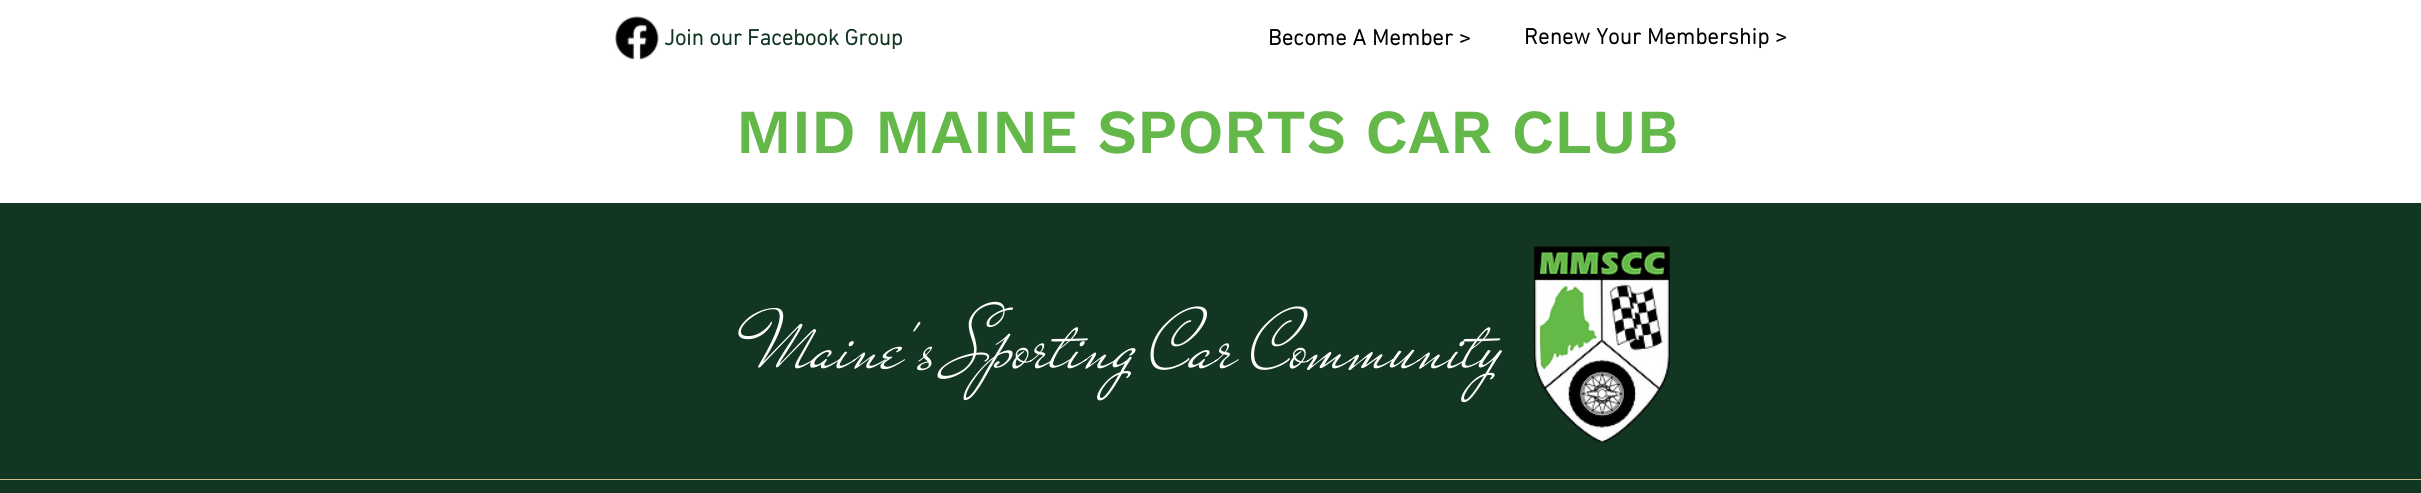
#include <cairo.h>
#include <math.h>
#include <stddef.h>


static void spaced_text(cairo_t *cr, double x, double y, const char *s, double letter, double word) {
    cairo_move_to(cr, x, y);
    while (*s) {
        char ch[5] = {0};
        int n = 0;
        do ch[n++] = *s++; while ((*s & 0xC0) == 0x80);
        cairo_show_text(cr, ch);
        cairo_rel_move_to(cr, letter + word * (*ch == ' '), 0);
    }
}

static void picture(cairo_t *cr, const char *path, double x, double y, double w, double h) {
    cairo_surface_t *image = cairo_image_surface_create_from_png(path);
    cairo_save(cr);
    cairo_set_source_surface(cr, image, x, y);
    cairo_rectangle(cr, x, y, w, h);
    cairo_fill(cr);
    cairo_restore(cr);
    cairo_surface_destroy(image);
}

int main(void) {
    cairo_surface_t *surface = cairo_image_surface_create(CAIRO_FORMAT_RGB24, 2421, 493);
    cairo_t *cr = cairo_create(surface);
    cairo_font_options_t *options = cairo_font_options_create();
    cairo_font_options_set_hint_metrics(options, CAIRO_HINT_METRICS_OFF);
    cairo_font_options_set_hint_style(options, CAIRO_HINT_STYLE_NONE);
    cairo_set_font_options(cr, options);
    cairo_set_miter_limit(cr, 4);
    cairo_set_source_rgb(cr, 0.071, 0.212, 0.133);
    cairo_paint(cr);
    cairo_set_source_rgb(cr, 1, 1, 1);
    cairo_rectangle(cr, 0, 0, 2421, 203);
    cairo_fill(cr);
    picture(cr, "img1.png", 615, 16, 44, 44);
    cairo_select_font_face(cr, "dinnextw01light", CAIRO_FONT_SLANT_NORMAL, CAIRO_FONT_WEIGHT_BOLD);
    cairo_set_font_size(cr, 22.5);
    cairo_set_source_rgb(cr, 0.071, 0.212, 0.133);
    cairo_move_to(cr, 664, 45);
    cairo_show_text(cr, "Join our Facebook Group");
    cairo_set_source_rgb(cr, 0, 0, 0);
    spaced_text(cr, 1268, 45, "Become A Member >", 0.25, 0);
    spaced_text(cr, 1524, 44, "Renew Your Membership >", 0.25, 0);
    cairo_select_font_face(cr, "Work Sans SemiBold", CAIRO_FONT_SLANT_NORMAL, CAIRO_FONT_WEIGHT_NORMAL);
    cairo_set_font_size(cr, 62.5);
    cairo_set_source_rgb(cr, 0.392, 0.722, 0.29);
    cairo_move_to(cr, 736, 153);
    cairo_show_text(cr, "MID MAINE SPORTS CAR CLUB");
    cairo_select_font_face(cr, "Mr De Haviland", CAIRO_FONT_SLANT_NORMAL, CAIRO_FONT_WEIGHT_NORMAL);
    cairo_set_font_size(cr, 85);
    cairo_set_source_rgb(cr, 1, 1, 1);
    cairo_move_to(cr, 759, 367);
    cairo_show_text(cr, "Maine's Sporting Car Community");
    picture(cr, "img2.png", 1534, 246, 136, 197);
    cairo_set_source_rgb(cr, 0.82, 0.741, 0.58);
    cairo_rectangle(cr, 0, 479, 2421, 1);
    cairo_fill(cr);
    cairo_surface_write_to_png(surface, "page.png");
    cairo_font_options_destroy(options);
    cairo_destroy(cr);
    cairo_surface_destroy(surface);
    return 0;
}
